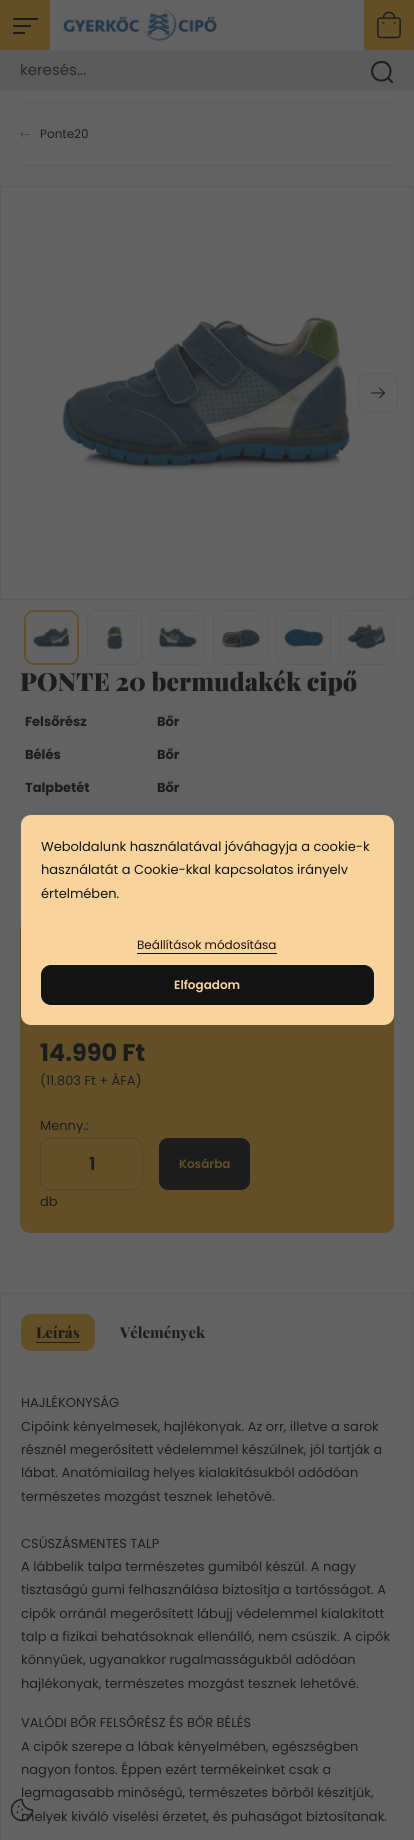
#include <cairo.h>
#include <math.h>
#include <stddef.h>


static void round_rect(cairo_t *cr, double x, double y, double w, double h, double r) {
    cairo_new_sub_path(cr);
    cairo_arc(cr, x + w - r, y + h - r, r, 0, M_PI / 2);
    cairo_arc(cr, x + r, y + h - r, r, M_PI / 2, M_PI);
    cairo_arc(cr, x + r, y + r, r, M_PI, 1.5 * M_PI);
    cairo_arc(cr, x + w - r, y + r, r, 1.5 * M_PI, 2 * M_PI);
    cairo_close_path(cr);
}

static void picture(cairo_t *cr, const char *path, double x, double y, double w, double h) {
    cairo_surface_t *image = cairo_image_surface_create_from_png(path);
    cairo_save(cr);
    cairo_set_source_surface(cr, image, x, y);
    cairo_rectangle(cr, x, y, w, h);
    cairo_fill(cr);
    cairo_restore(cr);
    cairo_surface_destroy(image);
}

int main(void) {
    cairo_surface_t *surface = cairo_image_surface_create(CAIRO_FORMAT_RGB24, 414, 1840);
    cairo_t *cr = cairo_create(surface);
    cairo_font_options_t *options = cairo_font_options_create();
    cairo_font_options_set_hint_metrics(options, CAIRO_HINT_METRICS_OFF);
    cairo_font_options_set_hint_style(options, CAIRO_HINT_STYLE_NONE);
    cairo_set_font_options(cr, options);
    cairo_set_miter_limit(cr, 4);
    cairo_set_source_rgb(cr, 0.384, 0.384, 0.384);
    cairo_paint(cr);
    cairo_set_source_rgb(cr, 0.384, 0.31, 0.157);
    cairo_rectangle(cr, 0, 0, 50, 50);
    cairo_fill(cr);
    cairo_set_source_rgb(cr, 0.11, 0.11, 0.11);
    cairo_rectangle(cr, 13, 18, 25, 2);
    cairo_fill(cr);
    cairo_rectangle(cr, 13, 25, 18, 2);
    cairo_fill(cr);
    cairo_rectangle(cr, 13, 32, 12, 2);
    cairo_fill(cr);
    picture(cr, "img1.png", 63, 9, 154, 32);
    cairo_set_source_rgb(cr, 0.384, 0.31, 0.157);
    cairo_rectangle(cr, 364, 0, 50, 50);
    cairo_fill(cr);
    picture(cr, "img2.png", 377, 11, 24, 28);
    cairo_set_source_rgb(cr, 0.357, 0.357, 0.357);
    cairo_rectangle(cr, 0, 50, 414, 41);
    cairo_fill(cr);
    cairo_select_font_face(cr, "Poppins", CAIRO_FONT_SLANT_NORMAL, CAIRO_FONT_WEIGHT_NORMAL);
    cairo_set_font_size(cr, 15);
    cairo_set_source_rgb(cr, 0.157, 0.157, 0.157);
    cairo_move_to(cr, 20, 75);
    cairo_show_text(cr, "keresés...");
    cairo_new_path(cr);
    cairo_move_to(cr, 392, 82);
    cairo_line_to(cr, 388, 78);
    cairo_move_to(cr, 381.5, 80.5);
    cairo_curve_to(cr, 369, 80.5, 369, 62, 381.5, 62);
    cairo_curve_to(cr, 393.5, 62, 393.5, 80.5, 381.5, 80.5);
    cairo_close_path(cr);
    cairo_set_source_rgb(cr, 0.11, 0.11, 0.11);
    cairo_set_line_cap(cr, CAIRO_LINE_CAP_ROUND);
    cairo_set_line_join(cr, CAIRO_LINE_JOIN_ROUND);
    cairo_stroke(cr);
    cairo_set_source_rgb(cr, 0.357, 0.357, 0.357);
    cairo_rectangle(cr, 20, 102, 374, 1);
    cairo_fill(cr);
    cairo_rectangle(cr, 20, 165, 374, 1);
    cairo_fill(cr);
    picture(cr, "img3.png", 20, 132, 10, 5);
    cairo_set_font_size(cr, 12);
    cairo_set_source_rgb(cr, 0.11, 0.11, 0.11);
    cairo_move_to(cr, 40, 138);
    cairo_show_text(cr, "Ponte20");
    cairo_rectangle(cr, 0.5, 186.5, 413, 413);
    cairo_set_source_rgb(cr, 0.357, 0.357, 0.357);
    cairo_set_line_width(cr, 1);
    cairo_set_line_cap(cr, CAIRO_LINE_CAP_BUTT);
    cairo_set_line_join(cr, CAIRO_LINE_JOIN_MITER);
    cairo_stroke(cr);
    picture(cr, "img4.png", 62, 317, 289, 155);
    round_rect(cr, 358.5, 373.5, 39, 39, 9.5);
    cairo_stroke(cr);
    picture(cr, "img5.png", 371, 387, 14, 12);
    round_rect(cr, 25, 611, 53, 53, 9);
    cairo_set_source_rgb(cr, 0.384, 0.31, 0.157);
    cairo_set_line_width(cr, 2);
    cairo_stroke(cr);
    picture(cr, "img6.png", 26, 612, 51, 51);
    round_rect(cr, 87.5, 610.5, 54, 54, 9.5);
    cairo_set_source_rgb(cr, 0.357, 0.357, 0.357);
    cairo_set_line_width(cr, 1);
    cairo_stroke(cr);
    picture(cr, "img7.png", 88, 611, 53, 53);
    round_rect(cr, 150.5, 610.5, 54, 54, 9.5);
    cairo_stroke(cr);
    picture(cr, "img8.png", 151, 611, 53, 53);
    round_rect(cr, 213.5, 610.5, 54, 54, 9.5);
    cairo_stroke(cr);
    picture(cr, "img9.png", 214, 611, 53, 53);
    round_rect(cr, 276.5, 610.5, 54, 54, 9.5);
    cairo_stroke(cr);
    picture(cr, "img10.png", 277, 611, 53, 53);
    round_rect(cr, 339.5, 610.5, 54, 54, 9.5);
    cairo_stroke(cr);
    picture(cr, "img11.png", 340, 611, 53, 53);
    cairo_select_font_face(cr, "Playfair Display Black", CAIRO_FONT_SLANT_NORMAL, CAIRO_FONT_WEIGHT_NORMAL);
    cairo_set_font_size(cr, 25);
    cairo_set_source_rgb(cr, 0.11, 0.11, 0.11);
    cairo_move_to(cr, 20, 691);
    cairo_show_text(cr, "PONTE 20 bermudakék cipő");
    cairo_select_font_face(cr, "Poppins", CAIRO_FONT_SLANT_NORMAL, CAIRO_FONT_WEIGHT_BOLD);
    cairo_set_font_size(cr, 13);
    cairo_move_to(cr, 25, 726);
    cairo_show_text(cr, "Felsőrész");
    cairo_move_to(cr, 157, 726);
    cairo_show_text(cr, "Bőr");
    cairo_move_to(cr, 25, 759);
    cairo_show_text(cr, "Bélés");
    cairo_move_to(cr, 157, 759);
    cairo_show_text(cr, "Bőr");
    cairo_move_to(cr, 25, 792);
    cairo_show_text(cr, "Talpbetét");
    cairo_move_to(cr, 157, 792);
    cairo_show_text(cr, "Bőr");
    cairo_set_source_rgb(cr, 0.384, 0.31, 0.157);
    round_rect(cr, 20, 919, 374, 314, 10);
    cairo_fill(cr);
    cairo_set_font_size(cr, 24);
    cairo_set_source_rgb(cr, 0.11, 0.11, 0.11);
    cairo_move_to(cr, 40, 1061);
    cairo_show_text(cr, "14.990 Ft");
    cairo_select_font_face(cr, "Poppins", CAIRO_FONT_SLANT_NORMAL, CAIRO_FONT_WEIGHT_NORMAL);
    cairo_set_font_size(cr, 13);
    cairo_move_to(cr, 40, 1085);
    cairo_show_text(cr, "(11.803 Ft + ÁFA)");
    cairo_move_to(cr, 40, 1130);
    cairo_show_text(cr, "Menny.:");
    round_rect(cr, 40.5, 1138.5, 102, 51, 9.5);
    cairo_set_source_rgb(cr, 0.329, 0.271, 0.149);
    cairo_stroke(cr);
    cairo_select_font_face(cr, "Poppins SemiBold", CAIRO_FONT_SLANT_NORMAL, CAIRO_FONT_WEIGHT_NORMAL);
    cairo_set_font_size(cr, 18);
    cairo_set_source_rgb(cr, 0.11, 0.11, 0.11);
    cairo_move_to(cr, 89, 1170);
    cairo_show_text(cr, "1");
    cairo_select_font_face(cr, "Poppins", CAIRO_FONT_SLANT_NORMAL, CAIRO_FONT_WEIGHT_NORMAL);
    cairo_set_font_size(cr, 13);
    cairo_move_to(cr, 40, 1206);
    cairo_show_text(cr, "db");
    round_rect(cr, 158.5, 1137.5, 92, 53, 9.5);
    cairo_fill_preserve(cr);
    cairo_set_source_rgb(cr, 0.384, 0.31, 0.157);
    cairo_stroke(cr);
    cairo_select_font_face(cr, "Poppins SemiBold", CAIRO_FONT_SLANT_NORMAL, CAIRO_FONT_WEIGHT_NORMAL);
    cairo_set_font_size(cr, 12);
    cairo_move_to(cr, 179, 1168);
    cairo_show_text(cr, "Kosárba");
    cairo_rectangle(cr, 0.5, 1293.5, 413, 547);
    cairo_set_source_rgb(cr, 0.357, 0.357, 0.357);
    cairo_stroke(cr);
    cairo_set_source_rgb(cr, 0.384, 0.31, 0.157);
    round_rect(cr, 21, 1314, 74, 37, 10);
    cairo_fill(cr);
    cairo_select_font_face(cr, "Playfair Display ExtraBold", CAIRO_FONT_SLANT_NORMAL, CAIRO_FONT_WEIGHT_NORMAL);
    cairo_set_font_size(cr, 15);
    cairo_set_source_rgb(cr, 0.11, 0.11, 0.11);
    cairo_move_to(cr, 36, 1338);
    cairo_show_text(cr, "Leírás");
    cairo_rectangle(cr, 36, 1342, 44, 1);
    cairo_fill(cr);
    cairo_move_to(cr, 120, 1338);
    cairo_show_text(cr, "Vélemények");
    cairo_select_font_face(cr, "Poppins", CAIRO_FONT_SLANT_NORMAL, CAIRO_FONT_WEIGHT_NORMAL);
    cairo_set_font_size(cr, 13);
    cairo_move_to(cr, 21, 1407);
    cairo_show_text(cr, "HAJLÉKONYSÁG");
    cairo_move_to(cr, 21, 1431);
    cairo_show_text(cr, "Cipőink kényelmesek, hajlékonyak. Az orr, illetve a sarok");
    cairo_move_to(cr, 21, 1454);
    cairo_show_text(cr, "résznél megerősített védelemmel készülnek, jól tartják a");
    cairo_move_to(cr, 21, 1477);
    cairo_show_text(cr, "lábat. Anatómiailag helyes kialakításukból adódóan");
    cairo_move_to(cr, 21, 1501);
    cairo_show_text(cr, "természetes mozgást tesznek lehetővé.");
    cairo_move_to(cr, 21, 1548);
    cairo_show_text(cr, "CSÚSZÁSMENTES TALP");
    cairo_move_to(cr, 21, 1571);
    cairo_show_text(cr, "A lábbelik talpa természetes gumiból készül. A nagy");
    cairo_move_to(cr, 21, 1594);
    cairo_show_text(cr, "tisztaságú gumi felhasználása biztosítja a tartósságot. A");
    cairo_move_to(cr, 21, 1618);
    cairo_show_text(cr, "cipők orránál megerősített lábujj védelemmel kialakított");
    cairo_move_to(cr, 21, 1641);
    cairo_show_text(cr, "talp a fizikai behatásoknak ellenálló, nem csúszik. A cipők");
    cairo_move_to(cr, 21, 1664);
    cairo_show_text(cr, "könnyűek, ugyanakkor rugalmasságukból adódóan");
    cairo_move_to(cr, 21, 1688);
    cairo_show_text(cr, "hajlékonyak, természetes mozgást tesznek lehetővé.");
    cairo_move_to(cr, 21, 1727);
    cairo_show_text(cr, "VALÓDI BŐR FELSŐRÉSZ ÉS BŐR BÉLÉS");
    cairo_move_to(cr, 21, 1751);
    cairo_show_text(cr, "A cipők szerepe a lábak kényelmében, egészségben");
    cairo_move_to(cr, 21, 1774);
    cairo_show_text(cr, "nagyon fontos. Éppen ezért termékeinket csak a");
    cairo_move_to(cr, 21, 1797);
    cairo_show_text(cr, "legmagasabb minőségű, természetes bőrből készítjük,");
    cairo_move_to(cr, 21, 1821);
    cairo_show_text(cr, "melyek kiváló viselési érzetet, és puhaságot biztosítanak.");
    cairo_set_source_rgb(cr, 0.973, 0.827, 0.612);
    round_rect(cr, 21, 815, 373, 210, 10);
    cairo_fill(cr);
    cairo_set_source_rgb(cr, 0.078, 0.078, 0.078);
    cairo_move_to(cr, 41, 851);
    cairo_show_text(cr, "Weboldalunk használatával jóváhagyja a cookie-k");
    cairo_move_to(cr, 41, 874);
    cairo_show_text(cr, "használatát a Cookie-kkal kapcsolatos irányelv");
    cairo_move_to(cr, 41, 898);
    cairo_show_text(cr, "értelmében.");
    cairo_set_font_size(cr, 12);
    cairo_move_to(cr, 137, 949);
    cairo_show_text(cr, "Beállítások módosítása");
    cairo_rectangle(cr, 137, 953, 140, 1);
    cairo_fill(cr);
    round_rect(cr, 41.5, 965.5, 332, 39, 9.5);
    cairo_fill_preserve(cr);
    cairo_stroke(cr);
    cairo_select_font_face(cr, "Poppins SemiBold", CAIRO_FONT_SLANT_NORMAL, CAIRO_FONT_WEIGHT_NORMAL);
    cairo_set_source_rgb(cr, 0.973, 0.827, 0.612);
    cairo_move_to(cr, 174, 989);
    cairo_show_text(cr, "Elfogadom");
    picture(cr, "img12.png", 10, 1798, 24, 24);
    cairo_surface_write_to_png(surface, "page.png");
    cairo_font_options_destroy(options);
    cairo_destroy(cr);
    cairo_surface_destroy(surface);
    return 0;
}
